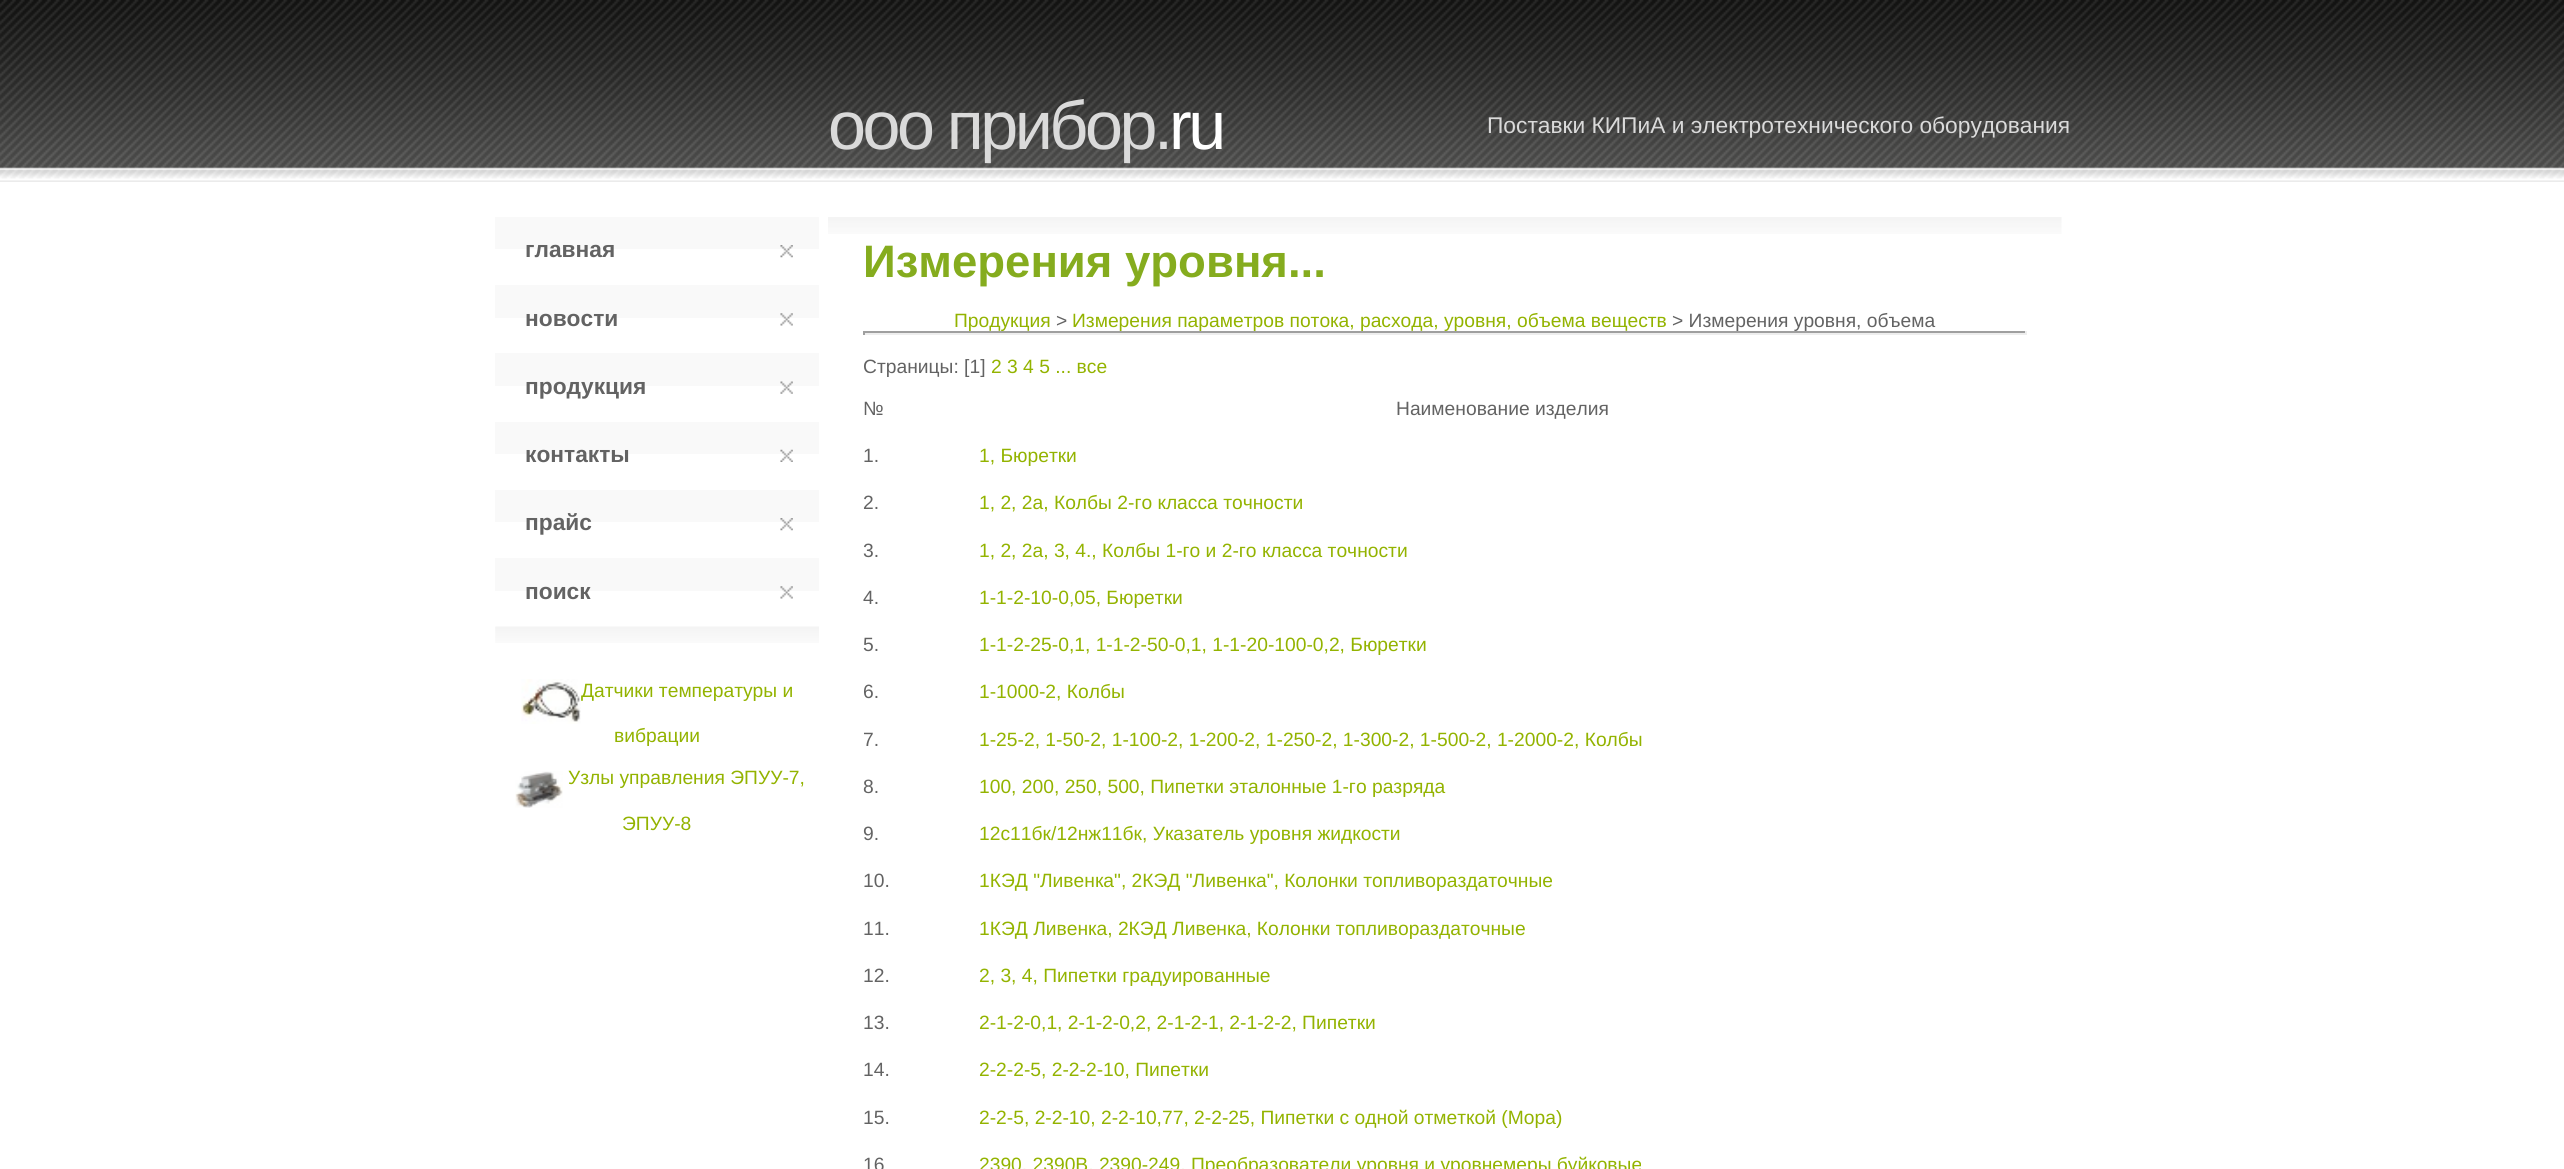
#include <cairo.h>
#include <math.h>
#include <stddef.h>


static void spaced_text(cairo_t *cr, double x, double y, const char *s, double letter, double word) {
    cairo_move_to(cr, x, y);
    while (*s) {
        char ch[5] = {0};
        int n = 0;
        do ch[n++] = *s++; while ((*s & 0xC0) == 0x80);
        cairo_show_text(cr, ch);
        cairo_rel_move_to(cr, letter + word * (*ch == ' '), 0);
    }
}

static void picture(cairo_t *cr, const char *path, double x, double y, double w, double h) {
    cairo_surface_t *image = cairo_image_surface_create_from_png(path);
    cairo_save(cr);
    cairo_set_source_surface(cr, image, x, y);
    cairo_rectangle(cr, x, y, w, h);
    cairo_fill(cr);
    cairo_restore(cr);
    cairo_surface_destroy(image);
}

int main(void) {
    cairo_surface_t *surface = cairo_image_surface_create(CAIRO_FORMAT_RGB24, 2564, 1169);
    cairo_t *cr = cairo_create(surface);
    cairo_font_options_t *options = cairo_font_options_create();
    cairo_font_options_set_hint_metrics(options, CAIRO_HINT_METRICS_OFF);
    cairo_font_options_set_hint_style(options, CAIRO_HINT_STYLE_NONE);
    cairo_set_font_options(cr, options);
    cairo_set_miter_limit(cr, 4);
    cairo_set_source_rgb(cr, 1, 1, 1);
    cairo_paint(cr);
    picture(cr, "img1.png", 0, 0, 2564, 182);
    cairo_select_font_face(cr, "Liberation Sans", CAIRO_FONT_SLANT_NORMAL, CAIRO_FONT_WEIGHT_NORMAL);
    cairo_set_font_size(cr, 68.25);
    cairo_set_source_rgb(cr, 0.855, 0.855, 0.855);
    spaced_text(cr, 828, 149, "ооо прибор.", -3.5, 0);
    cairo_set_source_rgb(cr, 1, 1, 1);
    spaced_text(cr, 1169, 149, "ru", -3.5, 0);
    cairo_set_font_size(cr, 22.75);
    cairo_set_source_rgb(cr, 0.855, 0.855, 0.855);
    cairo_move_to(cr, 1487, 133);
    cairo_show_text(cr, "Поставки КИПиА и электротехнического оборудования");
    cairo_set_source_rgb(cr, 0.973, 0.973, 0.973);
    cairo_rectangle(cr, 495, 217, 324, 32);
    cairo_fill(cr);
    cairo_select_font_face(cr, "Liberation Sans", CAIRO_FONT_SLANT_NORMAL, CAIRO_FONT_WEIGHT_BOLD);
    cairo_set_source_rgb(cr, 0.388, 0.388, 0.388);
    cairo_move_to(cr, 525, 257);
    cairo_show_text(cr, "главная");
    picture(cr, "img2.png", 780, 245, 13, 13);
    cairo_set_source_rgb(cr, 0.973, 0.973, 0.973);
    cairo_rectangle(cr, 495, 285, 324, 33);
    cairo_fill(cr);
    cairo_set_source_rgb(cr, 0.388, 0.388, 0.388);
    cairo_move_to(cr, 525, 326);
    cairo_show_text(cr, "новости");
    picture(cr, "img3.png", 780, 313, 13, 13);
    cairo_set_source_rgb(cr, 0.973, 0.973, 0.973);
    cairo_rectangle(cr, 495, 353, 324, 33);
    cairo_fill(cr);
    cairo_set_source_rgb(cr, 0.388, 0.388, 0.388);
    cairo_move_to(cr, 525, 394);
    cairo_show_text(cr, "продукция");
    picture(cr, "img4.png", 780, 381, 13, 13);
    cairo_set_source_rgb(cr, 0.973, 0.973, 0.973);
    cairo_rectangle(cr, 495, 422, 324, 32);
    cairo_fill(cr);
    cairo_set_source_rgb(cr, 0.388, 0.388, 0.388);
    cairo_move_to(cr, 525, 462);
    cairo_show_text(cr, "контакты");
    picture(cr, "img5.png", 780, 449, 13, 13);
    cairo_set_source_rgb(cr, 0.973, 0.973, 0.973);
    cairo_rectangle(cr, 495, 490, 324, 32);
    cairo_fill(cr);
    cairo_set_source_rgb(cr, 0.388, 0.388, 0.388);
    cairo_move_to(cr, 525, 530);
    cairo_show_text(cr, "прайс");
    picture(cr, "img2.png", 780, 518, 13, 13);
    cairo_set_source_rgb(cr, 0.973, 0.973, 0.973);
    cairo_rectangle(cr, 495, 558, 324, 33);
    cairo_fill(cr);
    cairo_set_source_rgb(cr, 0.388, 0.388, 0.388);
    cairo_move_to(cr, 525, 599);
    cairo_show_text(cr, "поиск");
    picture(cr, "img3.png", 780, 586, 13, 13);
    picture(cr, "img6.png", 495, 626, 324, 17);
    picture(cr, "img7.png", 521, 679, 60, 45);
    cairo_select_font_face(cr, "Liberation Sans", CAIRO_FONT_SLANT_NORMAL, CAIRO_FONT_WEIGHT_NORMAL);
    cairo_set_font_size(cr, 19.25);
    cairo_set_source_rgb(cr, 0.576, 0.702, 0);
    cairo_move_to(cr, 581, 697);
    cairo_show_text(cr, "Датчики температуры и");
    cairo_move_to(cr, 614, 742);
    cairo_show_text(cr, "вибрации");
    picture(cr, "img8.png", 515, 771, 48, 37);
    cairo_move_to(cr, 568, 784);
    cairo_show_text(cr, "Узлы управления ЭПУУ-7,");
    cairo_move_to(cr, 622, 830);
    cairo_show_text(cr, "ЭПУУ-8");
    picture(cr, "img9.png", 828, 217, 1234, 17);
    cairo_select_font_face(cr, "Liberation Sans", CAIRO_FONT_SLANT_NORMAL, CAIRO_FONT_WEIGHT_BOLD);
    cairo_set_font_size(cr, 45.5);
    cairo_set_source_rgb(cr, 0.522, 0.675, 0.118);
    cairo_move_to(cr, 863, 277);
    cairo_show_text(cr, "Измерения уровня...");
    cairo_select_font_face(cr, "Liberation Sans", CAIRO_FONT_SLANT_NORMAL, CAIRO_FONT_WEIGHT_NORMAL);
    cairo_set_font_size(cr, 19.25);
    cairo_set_source_rgb(cr, 0.576, 0.702, 0);
    cairo_move_to(cr, 954, 327);
    cairo_show_text(cr, "Продукция");
    cairo_set_source_rgb(cr, 0.388, 0.388, 0.388);
    cairo_move_to(cr, 1056, 327);
    cairo_show_text(cr, ">");
    cairo_set_source_rgb(cr, 0.576, 0.702, 0);
    cairo_move_to(cr, 1072, 327);
    cairo_show_text(cr, "Измерения параметров потока, расхода, уровня, объема веществ");
    cairo_set_source_rgb(cr, 0.388, 0.388, 0.388);
    cairo_move_to(cr, 1672, 327);
    cairo_show_text(cr, "> Измерения уровня, объема");
    cairo_set_source_rgb(cr, 0.624, 0.624, 0.624);
    cairo_rectangle(cr, 863, 331, 1164, 2);
    cairo_fill(cr);
    cairo_set_source_rgb(cr, 0.933, 0.933, 0.933);
    cairo_rectangle(cr, 2025, 331, 2, 4);
    cairo_fill(cr);
    cairo_rectangle(cr, 863, 333, 1164, 2);
    cairo_fill(cr);
    cairo_set_source_rgb(cr, 0.624, 0.624, 0.624);
    cairo_rectangle(cr, 863, 331, 2, 4);
    cairo_fill(cr);
    cairo_set_source_rgb(cr, 0.388, 0.388, 0.388);
    cairo_move_to(cr, 863, 373);
    cairo_show_text(cr, "Страницы: [1]");
    cairo_set_source_rgb(cr, 0.576, 0.702, 0);
    cairo_move_to(cr, 991, 373);
    cairo_show_text(cr, "2 3 4 5 ... все");
    cairo_set_source_rgb(cr, 0.388, 0.388, 0.388);
    cairo_move_to(cr, 863, 415);
    cairo_show_text(cr, "№");
    cairo_move_to(cr, 1396, 415);
    cairo_show_text(cr, "Наименование изделия");
    cairo_move_to(cr, 863, 462);
    cairo_show_text(cr, "1.");
    cairo_set_source_rgb(cr, 0.576, 0.702, 0);
    cairo_move_to(cr, 979, 462);
    cairo_show_text(cr, "1, Бюретки");
    cairo_set_source_rgb(cr, 0.388, 0.388, 0.388);
    cairo_move_to(cr, 863, 509);
    cairo_show_text(cr, "2.");
    cairo_set_source_rgb(cr, 0.576, 0.702, 0);
    cairo_move_to(cr, 979, 509);
    cairo_show_text(cr, "1, 2, 2а, Колбы 2-го класса точности");
    cairo_set_source_rgb(cr, 0.388, 0.388, 0.388);
    cairo_move_to(cr, 863, 557);
    cairo_show_text(cr, "3.");
    cairo_set_source_rgb(cr, 0.576, 0.702, 0);
    cairo_move_to(cr, 979, 557);
    cairo_show_text(cr, "1, 2, 2а, 3, 4., Колбы 1-го и 2-го класса точности");
    cairo_set_source_rgb(cr, 0.388, 0.388, 0.388);
    cairo_move_to(cr, 863, 604);
    cairo_show_text(cr, "4.");
    cairo_set_source_rgb(cr, 0.576, 0.702, 0);
    cairo_move_to(cr, 979, 604);
    cairo_show_text(cr, "1-1-2-10-0,05, Бюретки");
    cairo_set_source_rgb(cr, 0.388, 0.388, 0.388);
    cairo_move_to(cr, 863, 651);
    cairo_show_text(cr, "5.");
    cairo_set_source_rgb(cr, 0.576, 0.702, 0);
    cairo_move_to(cr, 979, 651);
    cairo_show_text(cr, "1-1-2-25-0,1, 1-1-2-50-0,1, 1-1-20-100-0,2, Бюретки");
    cairo_set_source_rgb(cr, 0.388, 0.388, 0.388);
    cairo_move_to(cr, 863, 698);
    cairo_show_text(cr, "6.");
    cairo_set_source_rgb(cr, 0.576, 0.702, 0);
    cairo_move_to(cr, 979, 698);
    cairo_show_text(cr, "1-1000-2, Колбы");
    cairo_set_source_rgb(cr, 0.388, 0.388, 0.388);
    cairo_move_to(cr, 863, 746);
    cairo_show_text(cr, "7.");
    cairo_set_source_rgb(cr, 0.576, 0.702, 0);
    cairo_move_to(cr, 979, 746);
    cairo_show_text(cr, "1-25-2, 1-50-2, 1-100-2, 1-200-2, 1-250-2, 1-300-2, 1-500-2, 1-2000-2, Колбы");
    cairo_set_source_rgb(cr, 0.388, 0.388, 0.388);
    cairo_move_to(cr, 863, 793);
    cairo_show_text(cr, "8.");
    cairo_set_source_rgb(cr, 0.576, 0.702, 0);
    cairo_move_to(cr, 979, 793);
    cairo_show_text(cr, "100, 200, 250, 500, Пипетки эталонные 1-го разряда");
    cairo_set_source_rgb(cr, 0.388, 0.388, 0.388);
    cairo_move_to(cr, 863, 840);
    cairo_show_text(cr, "9.");
    cairo_set_source_rgb(cr, 0.576, 0.702, 0);
    cairo_move_to(cr, 979, 840);
    cairo_show_text(cr, "12с11бк/12нж11бк, Указатель уровня жидкости");
    cairo_set_source_rgb(cr, 0.388, 0.388, 0.388);
    cairo_move_to(cr, 863, 887);
    cairo_show_text(cr, "10.");
    cairo_set_source_rgb(cr, 0.576, 0.702, 0);
    cairo_move_to(cr, 979, 887);
    cairo_show_text(cr, "1КЭД \"Ливенка\", 2КЭД \"Ливенка\", Колонки топливораздаточные");
    cairo_set_source_rgb(cr, 0.388, 0.388, 0.388);
    cairo_move_to(cr, 863, 935);
    cairo_show_text(cr, "11.");
    cairo_set_source_rgb(cr, 0.576, 0.702, 0);
    cairo_move_to(cr, 979, 935);
    cairo_show_text(cr, "1КЭД Ливенка, 2КЭД Ливенка, Колонки топливораздаточные");
    cairo_set_source_rgb(cr, 0.388, 0.388, 0.388);
    cairo_move_to(cr, 863, 982);
    cairo_show_text(cr, "12.");
    cairo_set_source_rgb(cr, 0.576, 0.702, 0);
    cairo_move_to(cr, 979, 982);
    cairo_show_text(cr, "2, 3, 4, Пипетки градуированные");
    cairo_set_source_rgb(cr, 0.388, 0.388, 0.388);
    cairo_move_to(cr, 863, 1029);
    cairo_show_text(cr, "13.");
    cairo_set_source_rgb(cr, 0.576, 0.702, 0);
    cairo_move_to(cr, 979, 1029);
    cairo_show_text(cr, "2-1-2-0,1, 2-1-2-0,2, 2-1-2-1, 2-1-2-2, Пипетки");
    cairo_set_source_rgb(cr, 0.388, 0.388, 0.388);
    cairo_move_to(cr, 863, 1076);
    cairo_show_text(cr, "14.");
    cairo_set_source_rgb(cr, 0.576, 0.702, 0);
    cairo_move_to(cr, 979, 1076);
    cairo_show_text(cr, "2-2-2-5, 2-2-2-10, Пипетки");
    cairo_set_source_rgb(cr, 0.388, 0.388, 0.388);
    cairo_move_to(cr, 863, 1124);
    cairo_show_text(cr, "15.");
    cairo_set_source_rgb(cr, 0.576, 0.702, 0);
    cairo_move_to(cr, 979, 1124);
    cairo_show_text(cr, "2-2-5, 2-2-10, 2-2-10,77, 2-2-25, Пипетки с одной отметкой (Мора)");
    cairo_set_source_rgb(cr, 0.388, 0.388, 0.388);
    cairo_move_to(cr, 863, 1171);
    cairo_show_text(cr, "16");
    cairo_set_source_rgb(cr, 0.576, 0.702, 0);
    cairo_move_to(cr, 979, 1171);
    cairo_show_text(cr, "2390, 2390В, 2390-249, Преобразователи уровня и уровнемеры буйковые");
    cairo_surface_write_to_png(surface, "page.png");
    cairo_font_options_destroy(options);
    cairo_destroy(cr);
    cairo_surface_destroy(surface);
    return 0;
}
